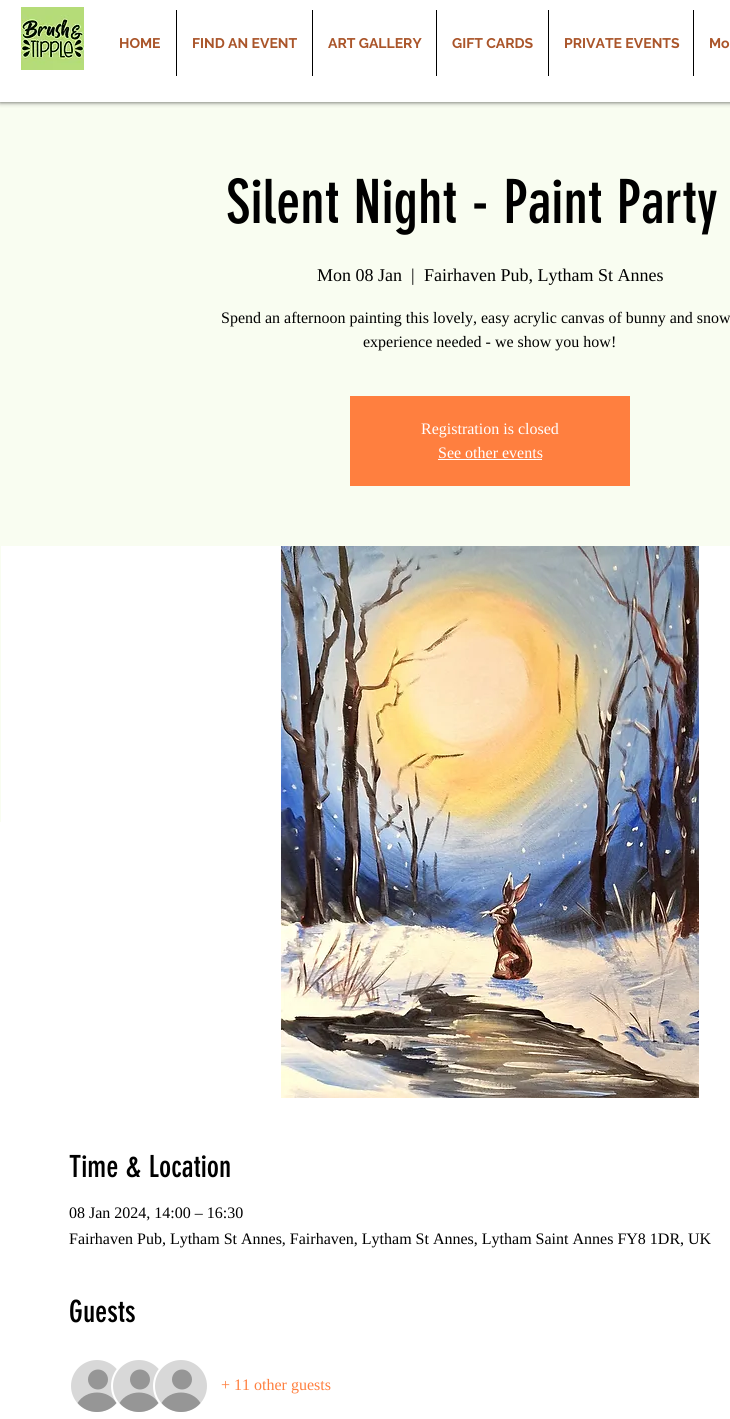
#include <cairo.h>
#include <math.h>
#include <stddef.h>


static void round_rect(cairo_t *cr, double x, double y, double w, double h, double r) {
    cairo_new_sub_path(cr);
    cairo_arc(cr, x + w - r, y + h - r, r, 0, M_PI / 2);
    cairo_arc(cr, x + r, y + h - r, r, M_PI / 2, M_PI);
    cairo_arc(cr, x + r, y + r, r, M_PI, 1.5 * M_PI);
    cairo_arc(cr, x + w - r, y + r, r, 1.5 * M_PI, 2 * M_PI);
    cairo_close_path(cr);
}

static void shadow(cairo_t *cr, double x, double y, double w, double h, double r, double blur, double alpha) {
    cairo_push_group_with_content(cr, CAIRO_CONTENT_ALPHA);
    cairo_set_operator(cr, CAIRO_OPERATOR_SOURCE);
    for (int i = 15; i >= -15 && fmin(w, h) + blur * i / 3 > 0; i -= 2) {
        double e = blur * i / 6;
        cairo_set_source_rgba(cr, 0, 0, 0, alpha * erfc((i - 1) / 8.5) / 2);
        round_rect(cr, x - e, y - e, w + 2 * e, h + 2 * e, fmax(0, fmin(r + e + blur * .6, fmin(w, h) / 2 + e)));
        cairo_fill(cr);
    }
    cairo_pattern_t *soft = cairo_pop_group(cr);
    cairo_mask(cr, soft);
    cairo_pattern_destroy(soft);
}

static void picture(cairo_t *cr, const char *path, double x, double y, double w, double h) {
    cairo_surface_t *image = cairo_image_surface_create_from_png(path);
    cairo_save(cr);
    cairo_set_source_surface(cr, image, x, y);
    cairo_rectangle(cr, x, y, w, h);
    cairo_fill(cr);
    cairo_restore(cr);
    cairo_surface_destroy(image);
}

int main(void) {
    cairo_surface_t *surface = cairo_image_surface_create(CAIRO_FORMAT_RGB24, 730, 1419);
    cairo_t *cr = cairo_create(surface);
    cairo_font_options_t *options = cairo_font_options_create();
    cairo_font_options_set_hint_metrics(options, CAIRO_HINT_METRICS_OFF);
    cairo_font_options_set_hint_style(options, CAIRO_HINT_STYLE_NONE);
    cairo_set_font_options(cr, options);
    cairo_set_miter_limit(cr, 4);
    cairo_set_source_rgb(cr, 1, 1, 1);
    cairo_paint(cr);
    cairo_set_source_rgb(cr, 0.973, 0.992, 0.945);
    cairo_rectangle(cr, 0, 102, 730, 720);
    cairo_fill(cr);
    cairo_set_source_rgb(cr, 0, 0, 0);
    shadow(cr, 0, 0, 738, 102, 0, 2.5, 0.7);
    cairo_set_source_rgb(cr, 1, 1, 1);
    cairo_rectangle(cr, 0, 0, 730, 102);
    cairo_fill(cr);
    picture(cr, "img1.png", 21, 7, 63, 63);
    cairo_select_font_face(cr, "Raleway", CAIRO_FONT_SLANT_NORMAL, CAIRO_FONT_WEIGHT_BOLD);
    cairo_set_font_size(cr, 14);
    cairo_set_source_rgb(cr, 0.667, 0.333, 0.165);
    cairo_move_to(cr, 119, 48);
    cairo_show_text(cr, "HOME");
    cairo_set_source_rgb(cr, 0, 0, 0);
    cairo_rectangle(cr, 176, 10, 1, 66);
    cairo_fill(cr);
    cairo_set_source_rgb(cr, 0.667, 0.333, 0.165);
    cairo_move_to(cr, 192, 48);
    cairo_show_text(cr, "FIND AN EVENT");
    cairo_set_source_rgb(cr, 0, 0, 0);
    cairo_rectangle(cr, 312, 10, 1, 66);
    cairo_fill(cr);
    cairo_set_source_rgb(cr, 0.667, 0.333, 0.165);
    cairo_move_to(cr, 328, 48);
    cairo_show_text(cr, "ART GALLERY");
    cairo_set_source_rgb(cr, 0, 0, 0);
    cairo_rectangle(cr, 436, 10, 1, 66);
    cairo_fill(cr);
    cairo_set_source_rgb(cr, 0.667, 0.333, 0.165);
    cairo_move_to(cr, 452, 48);
    cairo_show_text(cr, "GIFT CARDS");
    cairo_set_source_rgb(cr, 0, 0, 0);
    cairo_rectangle(cr, 548, 10, 1, 66);
    cairo_fill(cr);
    cairo_set_source_rgb(cr, 0.667, 0.333, 0.165);
    cairo_move_to(cr, 564, 48);
    cairo_show_text(cr, "PRIVATE EVENTS");
    cairo_set_source_rgb(cr, 0, 0, 0);
    cairo_rectangle(cr, 693, 10, 1, 66);
    cairo_fill(cr);
    cairo_set_source_rgb(cr, 0.667, 0.333, 0.165);
    cairo_move_to(cr, 709, 48);
    cairo_show_text(cr, "Mo");
    cairo_select_font_face(cr, "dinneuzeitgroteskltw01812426", CAIRO_FONT_SLANT_NORMAL, CAIRO_FONT_WEIGHT_NORMAL);
    cairo_set_font_size(cr, 60);
    cairo_set_source_rgb(cr, 0, 0, 0);
    cairo_move_to(cr, 226, 223);
    cairo_show_text(cr, "Silent Night - Paint Party");
    cairo_select_font_face(cr, "Liberation Serif", CAIRO_FONT_SLANT_NORMAL, CAIRO_FONT_WEIGHT_NORMAL);
    cairo_set_font_size(cr, 18);
    cairo_move_to(cr, 317, 281);
    cairo_show_text(cr, "Mon 08 Jan");
    cairo_move_to(cr, 411, 281);
    cairo_show_text(cr, "|");
    cairo_move_to(cr, 424, 281);
    cairo_show_text(cr, "Fairhaven Pub, Lytham St Annes");
    cairo_set_font_size(cr, 16);
    cairo_move_to(cr, 221, 323);
    cairo_show_text(cr, "Spend an afternoon painting this lovely, easy acrylic canvas of bunny and snow");
    cairo_move_to(cr, 363, 347);
    cairo_show_text(cr, "experience needed - we show you how!");
    cairo_set_source_rgb(cr, 1, 0.498, 0.247);
    cairo_rectangle(cr, 350, 396, 280, 90);
    cairo_fill(cr);
    cairo_set_source_rgb(cr, 1, 1, 1);
    cairo_move_to(cr, 421, 434);
    cairo_show_text(cr, "Registration is closed");
    cairo_move_to(cr, 438, 458);
    cairo_show_text(cr, "See other events");
    cairo_rectangle(cr, 438, 459, 104, 1);
    cairo_fill(cr);
    cairo_rectangle(cr, 1, 546, 729, 276);
    cairo_fill(cr);
    picture(cr, "img2.png", 281, 546, 418, 552);
    cairo_select_font_face(cr, "dinneuzeitgroteskltw01812426", CAIRO_FONT_SLANT_NORMAL, CAIRO_FONT_WEIGHT_NORMAL);
    cairo_set_font_size(cr, 30);
    cairo_set_source_rgb(cr, 0, 0, 0);
    cairo_move_to(cr, 69, 1177);
    cairo_show_text(cr, "Time & Location");
    cairo_select_font_face(cr, "Liberation Serif", CAIRO_FONT_SLANT_NORMAL, CAIRO_FONT_WEIGHT_NORMAL);
    cairo_set_font_size(cr, 16);
    cairo_move_to(cr, 69, 1218);
    cairo_show_text(cr, "08 Jan 2024, 14:00 – 16:30");
    cairo_move_to(cr, 69, 1244);
    cairo_show_text(cr, "Fairhaven Pub, Lytham St Annes, Fairhaven, Lytham St Annes, Lytham Saint Annes FY8 1DR, UK");
    cairo_select_font_face(cr, "dinneuzeitgroteskltw01812426", CAIRO_FONT_SLANT_NORMAL, CAIRO_FONT_WEIGHT_NORMAL);
    cairo_set_font_size(cr, 30);
    cairo_move_to(cr, 69, 1322);
    cairo_show_text(cr, "Guests");
    cairo_set_source_rgb(cr, 0.847, 0.847, 0.847);
    cairo_new_path(cr);
    cairo_arc(cr, 97, 1386, 27, 0, 2 * M_PI);
    cairo_fill_preserve(cr);
    cairo_set_source_rgb(cr, 1, 1, 1);
    cairo_stroke(cr);
    cairo_set_source_rgb(cr, 0.588, 0.588, 0.588);
    cairo_arc(cr, 98, 1379.5, 10, 0, 2 * M_PI);
    cairo_fill(cr);
    cairo_new_path(cr);
    cairo_move_to(cr, 116.5, 1403);
    cairo_curve_to(cr, 106.5, 1415, 87.5, 1415, 77.5, 1403);
    cairo_curve_to(cr, 86, 1389, 108, 1389, 116.5, 1403);
    cairo_close_path(cr);
    cairo_fill(cr);
    cairo_set_source_rgb(cr, 0.847, 0.847, 0.847);
    cairo_arc(cr, 139, 1386, 27, 0, 2 * M_PI);
    cairo_fill_preserve(cr);
    cairo_set_source_rgb(cr, 1, 1, 1);
    cairo_stroke(cr);
    cairo_set_source_rgb(cr, 0.588, 0.588, 0.588);
    cairo_arc(cr, 140, 1379.5, 10, 0, 2 * M_PI);
    cairo_fill(cr);
    cairo_new_path(cr);
    cairo_move_to(cr, 158.5, 1403);
    cairo_curve_to(cr, 148.5, 1415, 129.5, 1415, 119.5, 1403);
    cairo_curve_to(cr, 128, 1389, 150, 1389, 158.5, 1403);
    cairo_close_path(cr);
    cairo_fill(cr);
    cairo_set_source_rgb(cr, 0.847, 0.847, 0.847);
    cairo_arc(cr, 181, 1386, 27, 0, 2 * M_PI);
    cairo_fill_preserve(cr);
    cairo_set_source_rgb(cr, 1, 1, 1);
    cairo_stroke(cr);
    cairo_set_source_rgb(cr, 0.588, 0.588, 0.588);
    cairo_arc(cr, 182, 1379.5, 10, 0, 2 * M_PI);
    cairo_fill(cr);
    cairo_new_path(cr);
    cairo_move_to(cr, 200.5, 1403);
    cairo_curve_to(cr, 190.5, 1415, 171.5, 1415, 161.5, 1403);
    cairo_curve_to(cr, 170, 1389, 192, 1389, 200.5, 1403);
    cairo_close_path(cr);
    cairo_fill(cr);
    cairo_select_font_face(cr, "Liberation Serif", CAIRO_FONT_SLANT_NORMAL, CAIRO_FONT_WEIGHT_NORMAL);
    cairo_set_font_size(cr, 16);
    cairo_set_source_rgb(cr, 1, 0.498, 0.247);
    cairo_move_to(cr, 221, 1390);
    cairo_show_text(cr, "+ 11 other guests");
    cairo_surface_write_to_png(surface, "page.png");
    cairo_font_options_destroy(options);
    cairo_destroy(cr);
    cairo_surface_destroy(surface);
    return 0;
}
